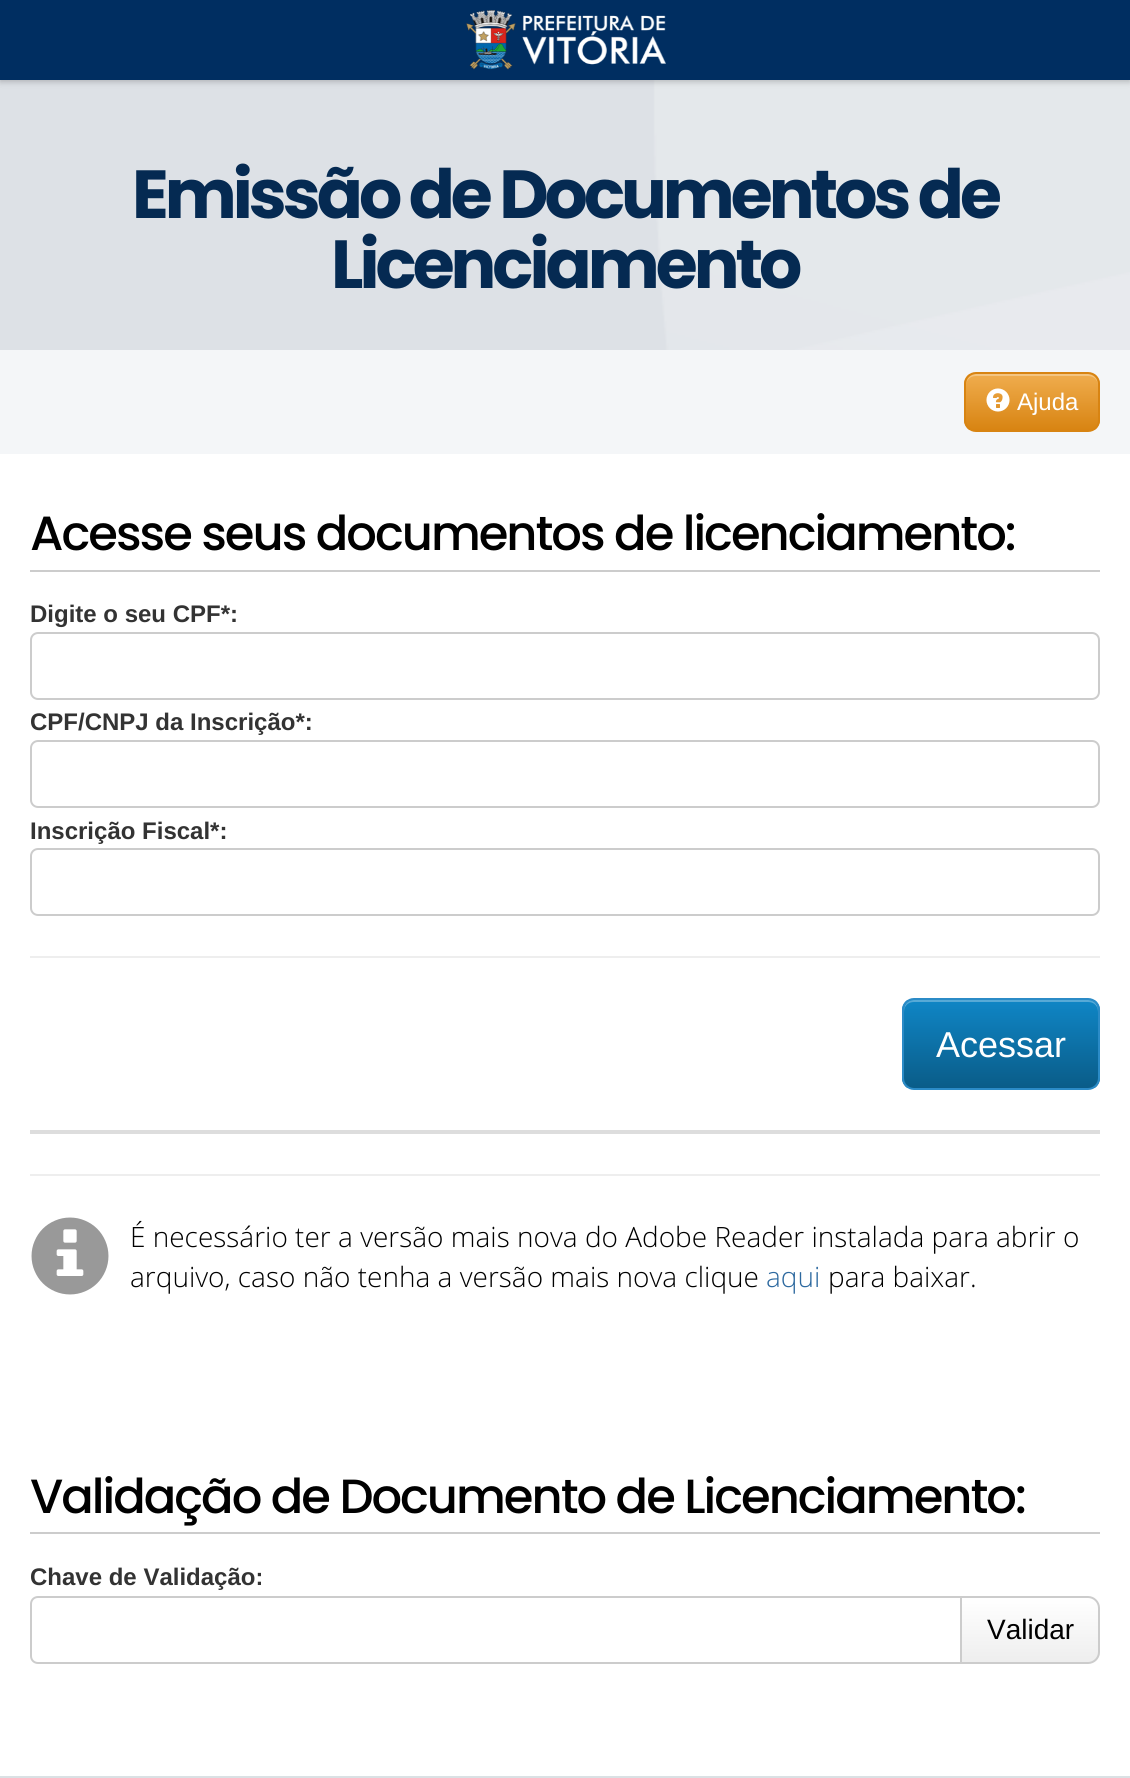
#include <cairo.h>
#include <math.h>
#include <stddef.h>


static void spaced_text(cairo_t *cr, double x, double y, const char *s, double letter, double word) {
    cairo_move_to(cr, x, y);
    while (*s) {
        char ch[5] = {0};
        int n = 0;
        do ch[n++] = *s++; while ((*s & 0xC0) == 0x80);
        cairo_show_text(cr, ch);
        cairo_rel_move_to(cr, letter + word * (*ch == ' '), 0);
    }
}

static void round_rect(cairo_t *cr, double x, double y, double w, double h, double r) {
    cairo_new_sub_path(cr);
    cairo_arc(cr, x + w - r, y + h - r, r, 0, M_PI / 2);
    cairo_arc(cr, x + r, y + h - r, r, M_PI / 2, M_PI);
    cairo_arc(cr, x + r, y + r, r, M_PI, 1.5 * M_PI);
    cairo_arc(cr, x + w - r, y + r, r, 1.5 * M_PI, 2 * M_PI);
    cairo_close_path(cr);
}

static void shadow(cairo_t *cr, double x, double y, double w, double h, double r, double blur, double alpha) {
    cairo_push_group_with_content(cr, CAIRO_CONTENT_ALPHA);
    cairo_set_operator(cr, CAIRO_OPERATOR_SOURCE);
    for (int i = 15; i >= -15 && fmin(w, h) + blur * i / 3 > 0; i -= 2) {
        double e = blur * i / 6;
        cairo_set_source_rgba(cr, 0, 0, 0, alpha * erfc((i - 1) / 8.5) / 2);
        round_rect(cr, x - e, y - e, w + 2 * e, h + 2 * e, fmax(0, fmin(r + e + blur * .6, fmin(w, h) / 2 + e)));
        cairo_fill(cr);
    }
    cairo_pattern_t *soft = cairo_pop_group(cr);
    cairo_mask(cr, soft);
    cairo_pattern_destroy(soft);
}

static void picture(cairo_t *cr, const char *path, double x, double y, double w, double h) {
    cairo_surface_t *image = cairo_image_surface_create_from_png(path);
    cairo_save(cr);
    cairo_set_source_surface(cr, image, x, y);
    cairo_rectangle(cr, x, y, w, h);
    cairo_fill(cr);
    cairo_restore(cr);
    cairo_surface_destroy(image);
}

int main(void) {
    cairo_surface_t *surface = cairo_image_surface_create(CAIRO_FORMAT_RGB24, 1130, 1778);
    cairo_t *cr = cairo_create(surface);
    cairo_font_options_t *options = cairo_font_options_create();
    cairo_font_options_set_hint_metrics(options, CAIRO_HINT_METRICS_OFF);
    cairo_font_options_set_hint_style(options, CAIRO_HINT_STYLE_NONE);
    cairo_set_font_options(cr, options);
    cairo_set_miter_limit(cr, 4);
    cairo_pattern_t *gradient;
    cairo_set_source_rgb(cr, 1, 1, 1);
    cairo_paint(cr);
    picture(cr, "img2.png", 0, 80, 1130, 270);
    cairo_set_source_rgb(cr, 0, 0, 0);
    shadow(cr, 0, 2, 1130, 80, 0, 3, 0.2);
    cairo_set_source_rgb(cr, 0, 0.18, 0.38);
    cairo_rectangle(cr, 0, 0, 1130, 80);
    cairo_fill(cr);
    picture(cr, "img1.png", 466, 10, 200, 60);
    cairo_select_font_face(cr, "Poppins", CAIRO_FONT_SLANT_NORMAL, CAIRO_FONT_WEIGHT_BOLD);
    cairo_set_font_size(cr, 68);
    cairo_set_source_rgb(cr, 0.02, 0.165, 0.322);
    spaced_text(cr, 132, 218, "Emissão de Documentos de", -4, 0);
    spaced_text(cr, 331, 288, "Licenciamento", -4, 0);
    cairo_set_source_rgb(cr, 0.957, 0.961, 0.969);
    cairo_rectangle(cr, 0, 350, 1130, 104);
    cairo_fill(cr);
    cairo_save(cr);
    round_rect(cr, 964, 372, 136, 60, 12);
    cairo_clip(cr);
    gradient = cairo_pattern_create_linear(1032, 374, 1032, 430);
    cairo_pattern_add_color_stop_rgba(gradient, 0, 0.941, 0.678, 0.306, 1);
    cairo_pattern_add_color_stop_rgba(gradient, 1, 0.847, 0.518, 0.071, 1);
    cairo_set_source(cr, gradient);
    cairo_pattern_destroy(gradient);
    cairo_rectangle(cr, 964, 374, 136, 56);
    cairo_fill(cr);
    cairo_restore(cr);
    cairo_set_source_rgba(cr, 1, 1, 1, 0.3);
    cairo_new_path(cr);
    cairo_move_to(cr, 976, 376);
    cairo_line_to(cr, 1088, 376);
    cairo_curve_to(cr, 1094, 376, 1098, 380, 1098, 386);
    cairo_curve_to(cr, 1098, 370, 1081, 374, 1069, 374);
    cairo_line_to(cr, 995, 374);
    cairo_curve_to(cr, 983, 374, 966, 370, 966, 386);
    cairo_curve_to(cr, 966, 380, 970, 376, 976, 376);
    cairo_close_path(cr);
    cairo_fill(cr);
    round_rect(cr, 965, 373, 134, 58, 11);
    cairo_set_source_rgb(cr, 0.847, 0.518, 0.071);
    cairo_stroke(cr);
    picture(cr, "img3.png", 986, 388, 24, 24);
    cairo_select_font_face(cr, "Liberation Sans", CAIRO_FONT_SLANT_NORMAL, CAIRO_FONT_WEIGHT_NORMAL);
    cairo_set_font_size(cr, 24);
    cairo_set_source_rgb(cr, 1, 1, 1);
    cairo_move_to(cr, 1017, 410);
    cairo_show_text(cr, "Ajuda");
    cairo_set_source_rgb(cr, 0.8, 0.8, 0.8);
    cairo_rectangle(cr, 30, 570, 1070, 2);
    cairo_fill(cr);
    cairo_select_font_face(cr, "Poppins Medium", CAIRO_FONT_SLANT_NORMAL, CAIRO_FONT_WEIGHT_NORMAL);
    cairo_set_font_size(cr, 48);
    cairo_set_source_rgb(cr, 0, 0, 0);
    spaced_text(cr, 30, 550, "Acesse seus documentos de licenciamento:", -2, 0);
    cairo_select_font_face(cr, "Liberation Sans", CAIRO_FONT_SLANT_NORMAL, CAIRO_FONT_WEIGHT_BOLD);
    cairo_set_font_size(cr, 24);
    cairo_set_source_rgb(cr, 0.2, 0.2, 0.2);
    cairo_move_to(cr, 30, 622);
    cairo_show_text(cr, "Digite o seu CPF*:");
    round_rect(cr, 31, 633, 1068, 66, 7);
    cairo_set_source_rgb(cr, 0.8, 0.8, 0.8);
    cairo_stroke(cr);
    cairo_set_source_rgb(cr, 0.2, 0.2, 0.2);
    cairo_move_to(cr, 30, 730);
    cairo_show_text(cr, "CPF/CNPJ da Inscrição*:");
    round_rect(cr, 31, 741, 1068, 66, 7);
    cairo_set_source_rgb(cr, 0.8, 0.8, 0.8);
    cairo_stroke(cr);
    cairo_set_source_rgb(cr, 0.2, 0.2, 0.2);
    cairo_move_to(cr, 30, 839);
    cairo_show_text(cr, "Inscrição Fiscal*:");
    round_rect(cr, 31, 849, 1068, 66, 7);
    cairo_set_source_rgb(cr, 0.8, 0.8, 0.8);
    cairo_stroke(cr);
    cairo_set_source_rgb(cr, 0.933, 0.933, 0.933);
    cairo_rectangle(cr, 30, 956, 1070, 2);
    cairo_fill(cr);
    cairo_save(cr);
    round_rect(cr, 902, 998, 198, 92, 12);
    cairo_clip(cr);
    gradient = cairo_pattern_create_linear(1001, 1000, 1001, 1088);
    cairo_pattern_add_color_stop_rgba(gradient, 0, 0.059, 0.525, 0.776, 1);
    cairo_pattern_add_color_stop_rgba(gradient, 1, 0.039, 0.361, 0.533, 1);
    cairo_set_source(cr, gradient);
    cairo_pattern_destroy(gradient);
    cairo_rectangle(cr, 902, 1000, 198, 88);
    cairo_fill(cr);
    cairo_restore(cr);
    cairo_set_source_rgba(cr, 1, 1, 1, 0.3);
    cairo_new_path(cr);
    cairo_move_to(cr, 914, 1002);
    cairo_line_to(cr, 1088, 1002);
    cairo_curve_to(cr, 1094, 1002, 1098, 1006, 1098, 1012);
    cairo_line_to(cr, 1098, 1010);
    cairo_curve_to(cr, 1098, 1004, 1094, 1000, 1088, 1000);
    cairo_line_to(cr, 914, 1000);
    cairo_curve_to(cr, 908, 1000, 904, 1004, 904, 1010);
    cairo_line_to(cr, 904, 1012);
    cairo_curve_to(cr, 904, 1006, 908, 1002, 914, 1002);
    cairo_close_path(cr);
    cairo_fill(cr);
    round_rect(cr, 903, 999, 196, 90, 11);
    cairo_set_source_rgb(cr, 0.169, 0.545, 0.78);
    cairo_stroke(cr);
    cairo_select_font_face(cr, "Liberation Sans", CAIRO_FONT_SLANT_NORMAL, CAIRO_FONT_WEIGHT_NORMAL);
    cairo_set_font_size(cr, 36);
    cairo_set_source_rgb(cr, 1, 1, 1);
    cairo_move_to(cr, 936, 1057);
    cairo_show_text(cr, "Acessar");
    cairo_set_source_rgb(cr, 0.867, 0.867, 0.867);
    cairo_rectangle(cr, 30, 1130, 1070, 4);
    cairo_fill(cr);
    cairo_set_source_rgb(cr, 0.933, 0.933, 0.933);
    cairo_rectangle(cr, 30, 1174, 1070, 2);
    cairo_fill(cr);
    picture(cr, "img4.png", 31, 1217, 78, 78);
    cairo_select_font_face(cr, "Open Sans Light", CAIRO_FONT_SLANT_NORMAL, CAIRO_FONT_WEIGHT_NORMAL);
    cairo_set_font_size(cr, 28);
    cairo_set_source_rgb(cr, 0, 0, 0);
    cairo_move_to(cr, 130, 1247);
    cairo_show_text(cr, "É necessário ter a versão mais nova do Adobe Reader instalada para abrir o");
    cairo_move_to(cr, 130, 1287);
    cairo_show_text(cr, "arquivo, caso não tenha a versão mais nova clique");
    cairo_set_source_rgb(cr, 0.176, 0.412, 0.624);
    cairo_move_to(cr, 766, 1287);
    cairo_show_text(cr, "aqui");
    cairo_set_source_rgb(cr, 0, 0, 0);
    cairo_move_to(cr, 828, 1287);
    cairo_show_text(cr, "para baixar.");
    cairo_set_source_rgb(cr, 0.8, 0.8, 0.8);
    cairo_rectangle(cr, 30, 1532, 1070, 2);
    cairo_fill(cr);
    cairo_select_font_face(cr, "Poppins Medium", CAIRO_FONT_SLANT_NORMAL, CAIRO_FONT_WEIGHT_NORMAL);
    cairo_set_font_size(cr, 48);
    cairo_set_source_rgb(cr, 0, 0, 0);
    spaced_text(cr, 30, 1513, "Validação de Documento de Licenciamento:", -2, 0);
    cairo_select_font_face(cr, "Liberation Sans", CAIRO_FONT_SLANT_NORMAL, CAIRO_FONT_WEIGHT_BOLD);
    cairo_set_font_size(cr, 24);
    cairo_set_source_rgb(cr, 0.2, 0.2, 0.2);
    cairo_move_to(cr, 30, 1585);
    cairo_show_text(cr, "Chave de Validação:");
    cairo_new_path(cr);
    cairo_move_to(cr, 38, 1597);
    cairo_line_to(cr, 961, 1597);
    cairo_line_to(cr, 961, 1663);
    cairo_line_to(cr, 38, 1663);
    cairo_curve_to(cr, 34, 1663, 31, 1660, 31, 1656);
    cairo_line_to(cr, 31, 1604);
    cairo_curve_to(cr, 31, 1600, 34, 1597, 38, 1597);
    cairo_close_path(cr);
    cairo_set_source_rgb(cr, 0.8, 0.8, 0.8);
    cairo_stroke(cr);
    cairo_save(cr);
    cairo_new_path(cr);
    cairo_move_to(cr, 960, 1596);
    cairo_line_to(cr, 1088, 1596);
    cairo_curve_to(cr, 1094.5, 1596, 1100, 1601.5, 1100, 1608);
    cairo_line_to(cr, 1100, 1652);
    cairo_curve_to(cr, 1100, 1658.5, 1094.5, 1664, 1088, 1664);
    cairo_line_to(cr, 960, 1664);
    cairo_close_path(cr);
    cairo_clip(cr);
    gradient = cairo_pattern_create_linear(1030, 1598, 1030, 1662);
    cairo_pattern_add_color_stop_rgba(gradient, 0, 1, 1, 1, 1);
    cairo_pattern_add_color_stop_rgba(gradient, 1, 0.933, 0.933, 0.933, 1);
    cairo_set_source(cr, gradient);
    cairo_pattern_destroy(gradient);
    cairo_rectangle(cr, 962, 1598, 138, 64);
    cairo_fill(cr);
    cairo_restore(cr);
    cairo_new_path(cr);
    cairo_move_to(cr, 961, 1597);
    cairo_line_to(cr, 1088, 1597);
    cairo_curve_to(cr, 1094, 1597, 1099, 1602, 1099, 1608);
    cairo_line_to(cr, 1099, 1652);
    cairo_curve_to(cr, 1099, 1658, 1094, 1663, 1088, 1663);
    cairo_line_to(cr, 961, 1663);
    cairo_close_path(cr);
    cairo_stroke(cr);
    cairo_select_font_face(cr, "Liberation Sans", CAIRO_FONT_SLANT_NORMAL, CAIRO_FONT_WEIGHT_NORMAL);
    cairo_set_font_size(cr, 28);
    cairo_set_source_rgb(cr, 0, 0, 0);
    cairo_move_to(cr, 987, 1639);
    cairo_show_text(cr, "Validar");
    cairo_set_source_rgb(cr, 0.855, 0.882, 0.894);
    cairo_rectangle(cr, 0, 1776, 1130, 2);
    cairo_fill(cr);
    cairo_surface_write_to_png(surface, "page.png");
    cairo_font_options_destroy(options);
    cairo_destroy(cr);
    cairo_surface_destroy(surface);
    return 0;
}
